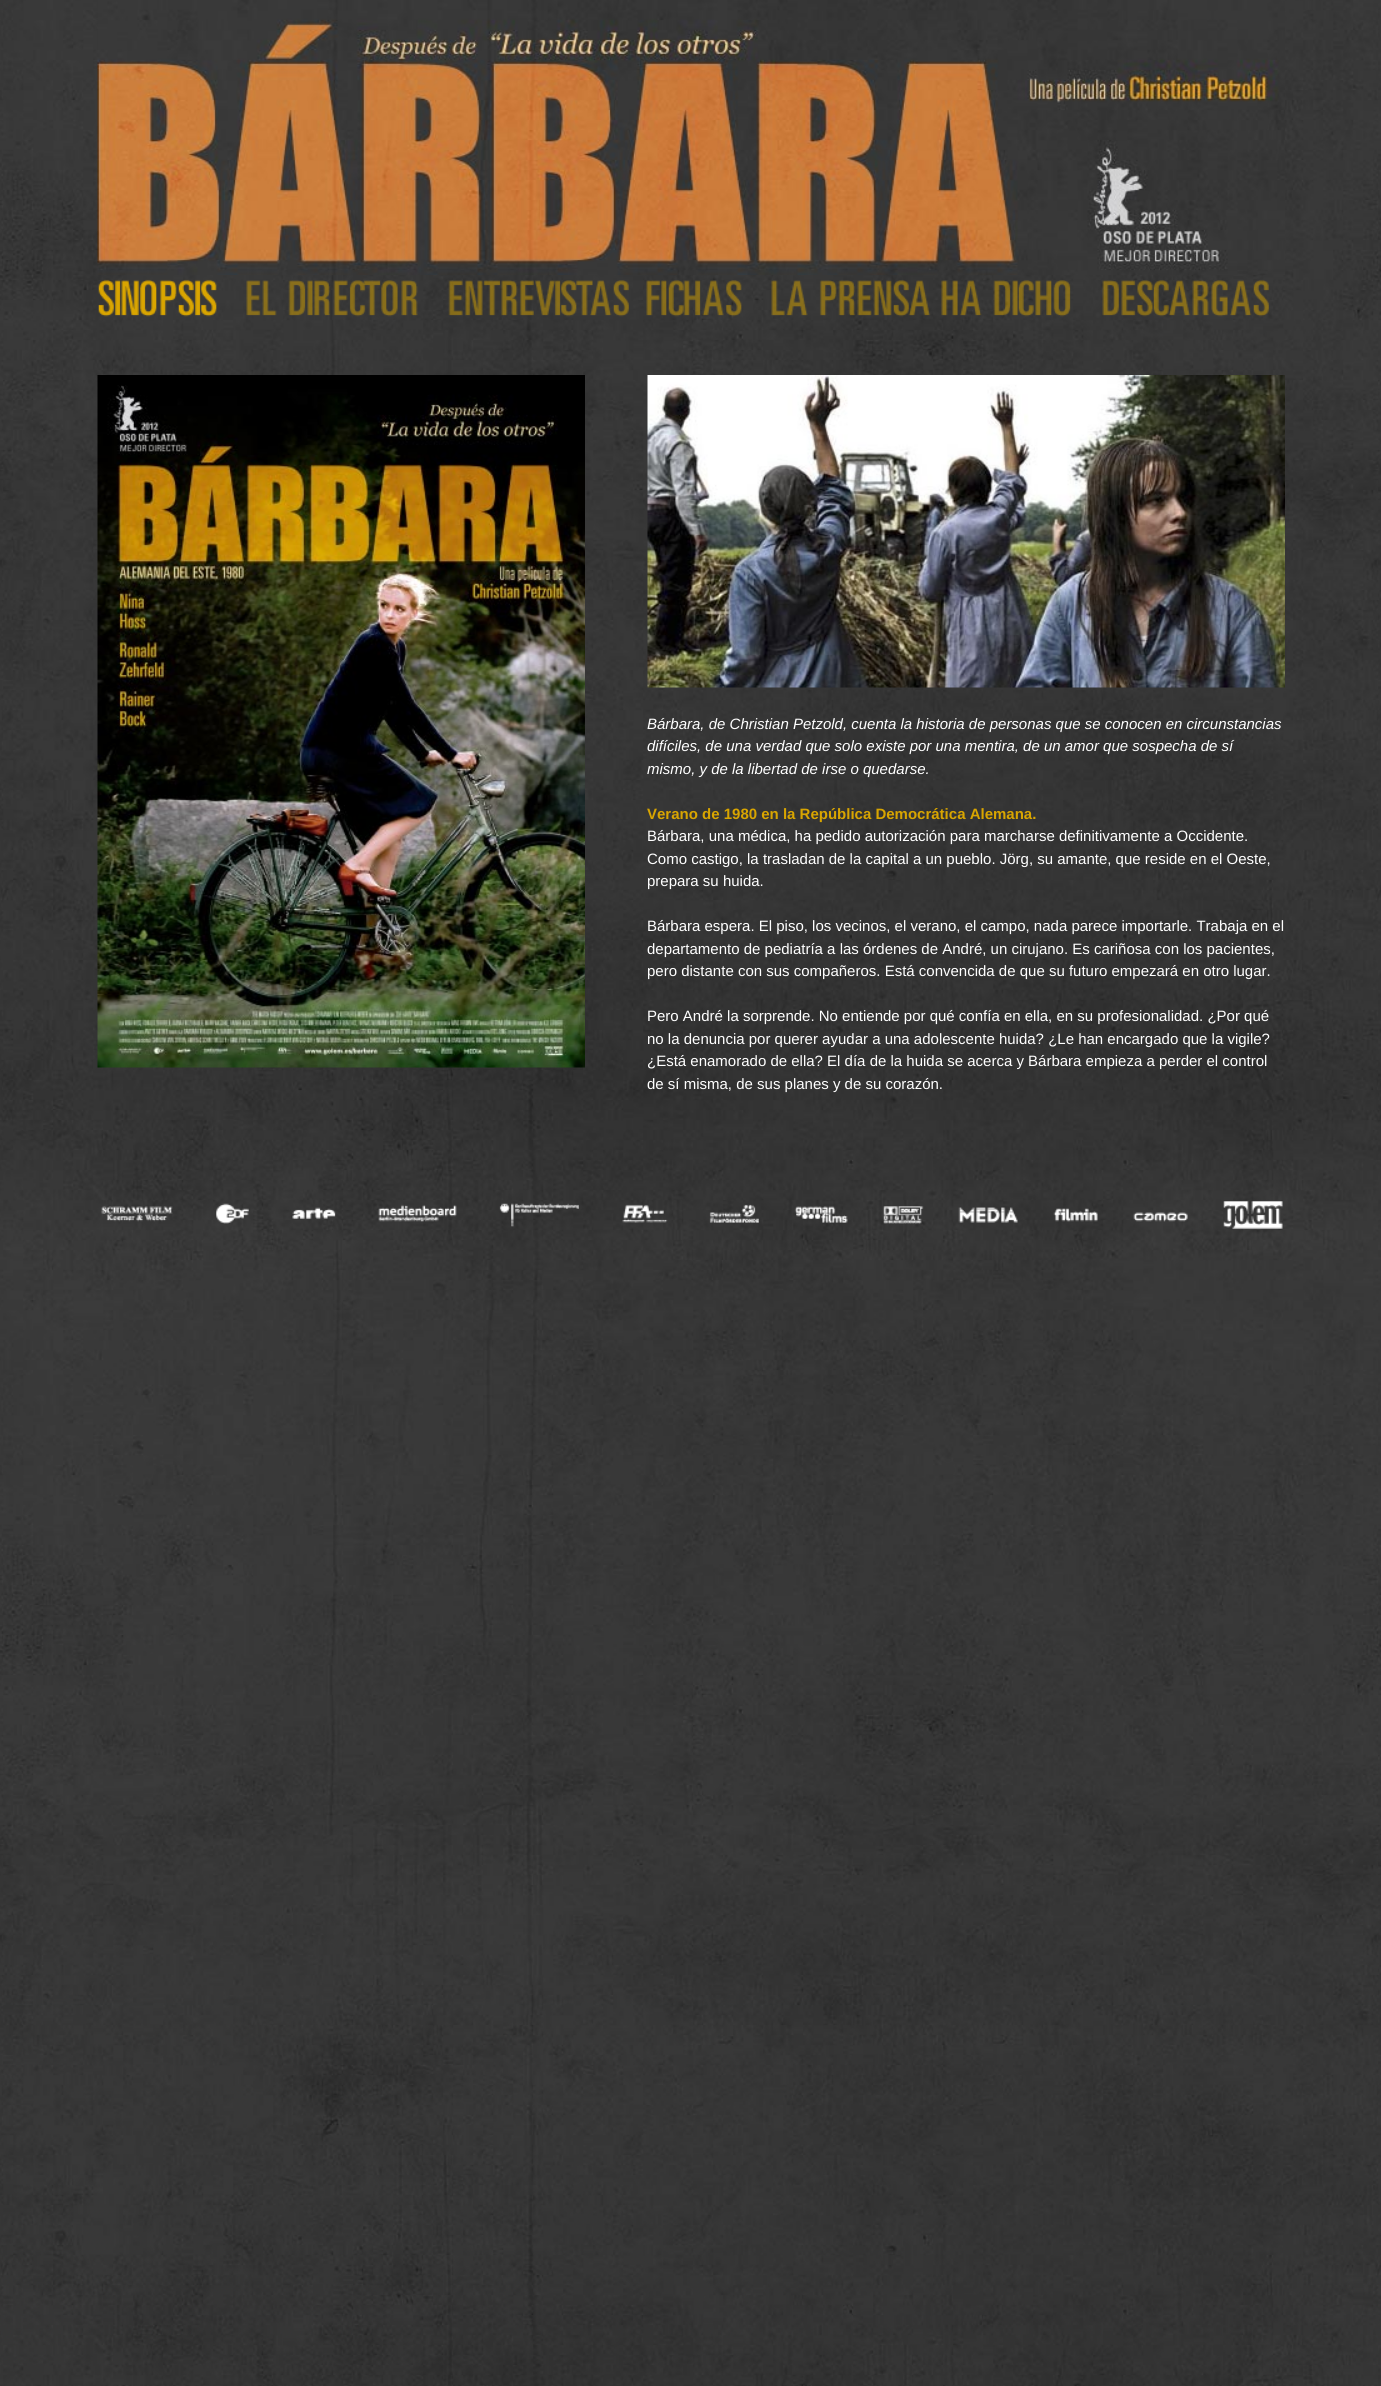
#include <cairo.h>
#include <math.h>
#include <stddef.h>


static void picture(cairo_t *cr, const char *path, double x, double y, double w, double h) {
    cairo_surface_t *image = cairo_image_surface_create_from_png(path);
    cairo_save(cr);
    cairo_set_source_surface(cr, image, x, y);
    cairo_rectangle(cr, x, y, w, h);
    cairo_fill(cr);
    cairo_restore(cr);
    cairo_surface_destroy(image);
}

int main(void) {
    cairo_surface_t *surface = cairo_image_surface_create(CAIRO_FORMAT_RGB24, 1381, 2386);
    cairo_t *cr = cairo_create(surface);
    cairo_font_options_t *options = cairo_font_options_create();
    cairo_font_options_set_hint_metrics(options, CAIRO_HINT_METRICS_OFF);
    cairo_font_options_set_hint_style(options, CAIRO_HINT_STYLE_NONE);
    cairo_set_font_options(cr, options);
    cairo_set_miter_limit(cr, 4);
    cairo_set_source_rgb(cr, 1, 1, 1);
    cairo_paint(cr);
    picture(cr, "img1.png", 0, 0, 1381, 2386);
    picture(cr, "img2.png", 97, 0, 1188, 275);
    picture(cr, "img3.png", 98, 279, 119, 38);
    picture(cr, "img4.png", 246, 280, 172, 37);
    picture(cr, "img5.png", 448, 280, 181, 37);
    picture(cr, "img6.png", 646, 280, 96, 37);
    picture(cr, "img7.png", 771, 280, 300, 37);
    picture(cr, "img8.png", 1102, 280, 167, 37);
    picture(cr, "img9.png", 97, 375, 488, 693);
    picture(cr, "img10.png", 647, 375, 638, 313);
    cairo_select_font_face(cr, "Liberation Sans", CAIRO_FONT_SLANT_ITALIC, CAIRO_FONT_WEIGHT_NORMAL);
    cairo_set_font_size(cr, 15);
    cairo_set_source_rgb(cr, 1, 1, 1);
    cairo_move_to(cr, 647, 729);
    cairo_show_text(cr, "Bárbara, de Christian Petzold, cuenta la historia de personas que se conocen en circunstancias");
    cairo_move_to(cr, 647, 751);
    cairo_show_text(cr, "difíciles, de una verdad que solo existe por una mentira, de un amor que sospecha de sí");
    cairo_move_to(cr, 647, 774);
    cairo_show_text(cr, "mismo, y de la libertad de irse o quedarse.");
    cairo_select_font_face(cr, "Liberation Sans", CAIRO_FONT_SLANT_NORMAL, CAIRO_FONT_WEIGHT_BOLD);
    cairo_set_source_rgb(cr, 0.851, 0.647, 0);
    cairo_move_to(cr, 647, 819);
    cairo_show_text(cr, "Verano de 1980 en la República Democrática Alemana.");
    cairo_select_font_face(cr, "Liberation Sans", CAIRO_FONT_SLANT_NORMAL, CAIRO_FONT_WEIGHT_NORMAL);
    cairo_set_source_rgb(cr, 1, 1, 1);
    cairo_move_to(cr, 647, 841);
    cairo_show_text(cr, "Bárbara, una médica, ha pedido autorización para marcharse definitivamente a Occidente.");
    cairo_move_to(cr, 647, 864);
    cairo_show_text(cr, "Como castigo, la trasladan de la capital a un pueblo. Jörg, su amante, que reside en el Oeste,");
    cairo_move_to(cr, 647, 886);
    cairo_show_text(cr, "prepara su huida.");
    cairo_move_to(cr, 647, 931);
    cairo_show_text(cr, "Bárbara espera. El piso, los vecinos, el verano, el campo, nada parece importarle. Trabaja en el");
    cairo_move_to(cr, 647, 954);
    cairo_show_text(cr, "departamento de pediatría a las órdenes de André, un cirujano. Es cariñosa con los pacientes,");
    cairo_move_to(cr, 647, 976);
    cairo_show_text(cr, "pero distante con sus compañeros. Está convencida de que su futuro empezará en otro lugar.");
    cairo_move_to(cr, 647, 1021);
    cairo_show_text(cr, "Pero André la sorprende. No entiende por qué confía en ella, en su profesionalidad. ¿Por qué");
    cairo_move_to(cr, 647, 1044);
    cairo_show_text(cr, "no la denuncia por querer ayudar a una adolescente huida? ¿Le han encargado que la vigile?");
    cairo_move_to(cr, 647, 1066);
    cairo_show_text(cr, "¿Está enamorado de ella? El día de la huida se acerca y Bárbara empieza a perder el control");
    cairo_move_to(cr, 647, 1089);
    cairo_show_text(cr, "de sí misma, de sus planes y de su corazón.");
    picture(cr, "img11.png", 101, 1201, 1182, 28);
    cairo_surface_write_to_png(surface, "page.png");
    cairo_font_options_destroy(options);
    cairo_destroy(cr);
    cairo_surface_destroy(surface);
    return 0;
}
